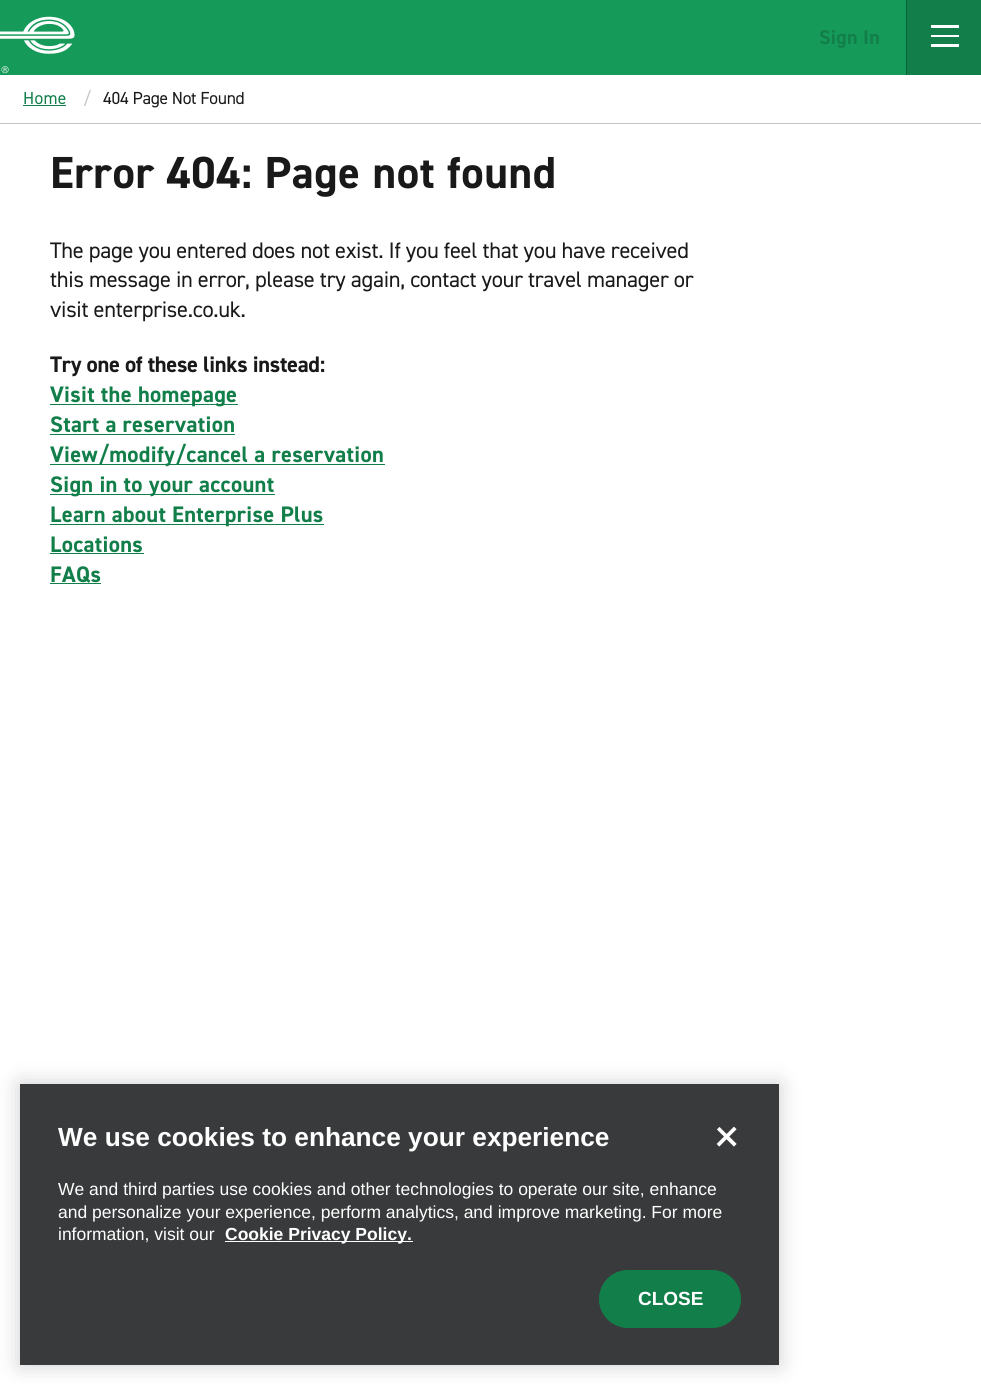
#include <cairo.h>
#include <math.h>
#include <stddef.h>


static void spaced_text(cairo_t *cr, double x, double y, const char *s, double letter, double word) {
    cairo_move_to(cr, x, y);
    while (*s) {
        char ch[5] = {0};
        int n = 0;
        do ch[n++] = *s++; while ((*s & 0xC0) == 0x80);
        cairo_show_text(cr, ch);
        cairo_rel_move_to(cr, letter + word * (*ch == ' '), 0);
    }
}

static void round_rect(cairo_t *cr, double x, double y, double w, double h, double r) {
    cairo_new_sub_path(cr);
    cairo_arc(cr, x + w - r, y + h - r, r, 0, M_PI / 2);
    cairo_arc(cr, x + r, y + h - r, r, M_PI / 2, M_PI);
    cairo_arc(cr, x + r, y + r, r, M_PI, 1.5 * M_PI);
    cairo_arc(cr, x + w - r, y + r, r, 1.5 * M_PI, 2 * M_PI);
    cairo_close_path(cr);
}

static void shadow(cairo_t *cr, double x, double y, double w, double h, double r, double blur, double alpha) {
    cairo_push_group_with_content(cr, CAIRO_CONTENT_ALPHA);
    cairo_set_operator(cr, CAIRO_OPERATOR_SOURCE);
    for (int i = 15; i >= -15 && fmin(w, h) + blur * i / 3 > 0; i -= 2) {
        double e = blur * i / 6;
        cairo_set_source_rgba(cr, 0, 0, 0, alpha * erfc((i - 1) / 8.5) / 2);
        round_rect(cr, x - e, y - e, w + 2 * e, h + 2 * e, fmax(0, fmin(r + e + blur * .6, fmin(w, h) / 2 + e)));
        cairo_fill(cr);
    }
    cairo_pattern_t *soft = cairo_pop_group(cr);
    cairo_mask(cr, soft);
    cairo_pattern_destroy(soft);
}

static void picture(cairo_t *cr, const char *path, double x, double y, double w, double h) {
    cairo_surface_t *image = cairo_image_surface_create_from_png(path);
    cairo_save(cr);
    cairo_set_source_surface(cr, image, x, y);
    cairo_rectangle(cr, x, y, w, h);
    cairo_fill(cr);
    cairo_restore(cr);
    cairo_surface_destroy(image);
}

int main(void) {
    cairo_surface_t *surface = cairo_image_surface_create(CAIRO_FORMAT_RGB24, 981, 1384);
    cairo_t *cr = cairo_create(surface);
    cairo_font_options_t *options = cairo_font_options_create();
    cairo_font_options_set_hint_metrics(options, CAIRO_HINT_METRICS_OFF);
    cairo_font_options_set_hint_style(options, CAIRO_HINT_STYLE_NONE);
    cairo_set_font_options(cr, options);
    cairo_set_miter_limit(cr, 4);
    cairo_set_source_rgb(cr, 1, 1, 1);
    cairo_paint(cr);
    cairo_set_source_rgb(cr, 0.086, 0.604, 0.353);
    cairo_rectangle(cr, 0, 0, 906, 75);
    cairo_fill(cr);
    picture(cr, "img1.png", 0, 16, 75, 58);
    cairo_select_font_face(cr, "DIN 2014", CAIRO_FONT_SLANT_NORMAL, CAIRO_FONT_WEIGHT_BOLD);
    cairo_set_font_size(cr, 20);
    cairo_set_source_rgb(cr, 0.071, 0.498, 0.29);
    spaced_text(cr, 819, 44, "Sign In", 0.3, 0);
    cairo_rectangle(cr, 907, 0, 74, 75);
    cairo_fill(cr);
    cairo_set_source_rgb(cr, 0, 0.4, 0.224);
    cairo_rectangle(cr, 906, 0, 1, 75);
    cairo_fill(cr);
    cairo_set_source_rgb(cr, 1, 1, 1);
    cairo_rectangle(cr, 931, 44, 28, 3);
    cairo_fill(cr);
    cairo_rectangle(cr, 931, 35, 28, 2);
    cairo_fill(cr);
    cairo_rectangle(cr, 931, 25, 28, 3);
    cairo_fill(cr);
    cairo_set_source_rgb(cr, 0.765, 0.765, 0.765);
    cairo_rectangle(cr, 0, 123, 981, 1);
    cairo_fill(cr);
    cairo_select_font_face(cr, "DIN 2014", CAIRO_FONT_SLANT_NORMAL, CAIRO_FONT_WEIGHT_NORMAL);
    cairo_set_font_size(cr, 17.5);
    cairo_set_source_rgb(cr, 0.071, 0.498, 0.29);
    spaced_text(cr, 23, 104, "Home", 0.3, 0);
    cairo_rectangle(cr, 23, 105, 43, 1);
    cairo_fill(cr);
    cairo_set_source_rgb(cr, 0.765, 0.765, 0.765);
    spaced_text(cr, 83, 104, "/", -0.3, 0);
    cairo_set_source_rgb(cr, 0.094, 0.098, 0.094);
    spaced_text(cr, 103, 104, "404 Page Not Found", -0.3, 0);
    cairo_select_font_face(cr, "DIN 2014", CAIRO_FONT_SLANT_NORMAL, CAIRO_FONT_WEIGHT_BOLD);
    cairo_set_font_size(cr, 45);
    spaced_text(cr, 50, 188, "Error 404: Page not found", 0.6, 0);
    cairo_select_font_face(cr, "DIN 2014", CAIRO_FONT_SLANT_NORMAL, CAIRO_FONT_WEIGHT_NORMAL);
    cairo_set_font_size(cr, 22.5);
    spaced_text(cr, 50, 258, "The page you entered does not exist. If you feel that you have received", -0.3, 0);
    spaced_text(cr, 50, 287, "this message in error, please try again, contact your travel manager or", -0.3, 0);
    spaced_text(cr, 50, 317, "visit enterprise.co.uk.", -0.3, 0);
    cairo_select_font_face(cr, "DIN 2014", CAIRO_FONT_SLANT_NORMAL, CAIRO_FONT_WEIGHT_BOLD);
    spaced_text(cr, 50, 372, "Try one of these links instead:", -0.3, 0);
    cairo_set_source_rgb(cr, 0.071, 0.498, 0.29);
    cairo_rectangle(cr, 50, 404, 188, 1);
    cairo_fill(cr);
    spaced_text(cr, 50, 402, "Visit the homepage", 0.3, 0);
    spaced_text(cr, 50, 432, "Start a reservation", 0.3, 0);
    cairo_rectangle(cr, 50, 434, 185, 1);
    cairo_fill(cr);
    cairo_rectangle(cr, 50, 464, 335, 1);
    cairo_fill(cr);
    spaced_text(cr, 50, 462, "View/modify/cancel a reservation", 0.3, 0);
    cairo_rectangle(cr, 50, 494, 225, 1);
    cairo_fill(cr);
    spaced_text(cr, 50, 492, "Sign in to your account", 0.3, 0);
    cairo_rectangle(cr, 50, 524, 274, 1);
    cairo_fill(cr);
    spaced_text(cr, 50, 522, "Learn about Enterprise Plus", 0.3, 0);
    spaced_text(cr, 50, 552, "Locations", 0.3, 0);
    cairo_rectangle(cr, 50, 553, 94, 1);
    cairo_fill(cr);
    spaced_text(cr, 50, 582, "FAQs", 0.3, 0);
    cairo_rectangle(cr, 50, 583, 51, 1);
    cairo_fill(cr);
    cairo_set_source_rgb(cr, 0, 0, 0);
    shadow(cr, 20, 1084, 759, 281, 0, 11, 0.2);
    cairo_set_source_rgb(cr, 0.224, 0.227, 0.231);
    cairo_rectangle(cr, 20, 1084, 759, 281);
    cairo_fill(cr);
    cairo_select_font_face(cr, "Liberation Sans", CAIRO_FONT_SLANT_NORMAL, CAIRO_FONT_WEIGHT_BOLD);
    cairo_set_font_size(cr, 26.25);
    cairo_set_source_rgb(cr, 1, 1, 1);
    cairo_move_to(cr, 58, 1146);
    cairo_show_text(cr, "We use cookies to enhance your experience");
    cairo_select_font_face(cr, "Liberation Sans", CAIRO_FONT_SLANT_NORMAL, CAIRO_FONT_WEIGHT_NORMAL);
    cairo_set_font_size(cr, 17.5);
    cairo_move_to(cr, 58, 1195);
    cairo_show_text(cr, "We and third parties use cookies and other technologies to operate our site, enhance");
    cairo_move_to(cr, 58, 1218);
    cairo_show_text(cr, "and personalize your experience, perform analytics, and improve marketing. For more");
    cairo_move_to(cr, 58, 1240);
    cairo_show_text(cr, "information, visit our");
    cairo_rectangle(cr, 225, 1241, 188, 1);
    cairo_fill(cr);
    cairo_select_font_face(cr, "Liberation Sans", CAIRO_FONT_SLANT_NORMAL, CAIRO_FONT_WEIGHT_BOLD);
    cairo_move_to(cr, 225, 1240);
    cairo_show_text(cr, "Cookie Privacy Policy.");
    picture(cr, "img2.png", 716, 1126, 21, 21);
    cairo_set_source_rgb(cr, 0.071, 0.498, 0.29);
    round_rect(cr, 599.5, 1270.5, 141, 57, 28.5);
    cairo_fill_preserve(cr);
    cairo_set_line_width(cr, 1);
    cairo_stroke(cr);
    cairo_set_font_size(cr, 19);
    cairo_set_source_rgb(cr, 1, 1, 1);
    cairo_move_to(cr, 638, 1305);
    cairo_show_text(cr, "CLOSE");
    cairo_surface_write_to_png(surface, "page.png");
    cairo_font_options_destroy(options);
    cairo_destroy(cr);
    cairo_surface_destroy(surface);
    return 0;
}
